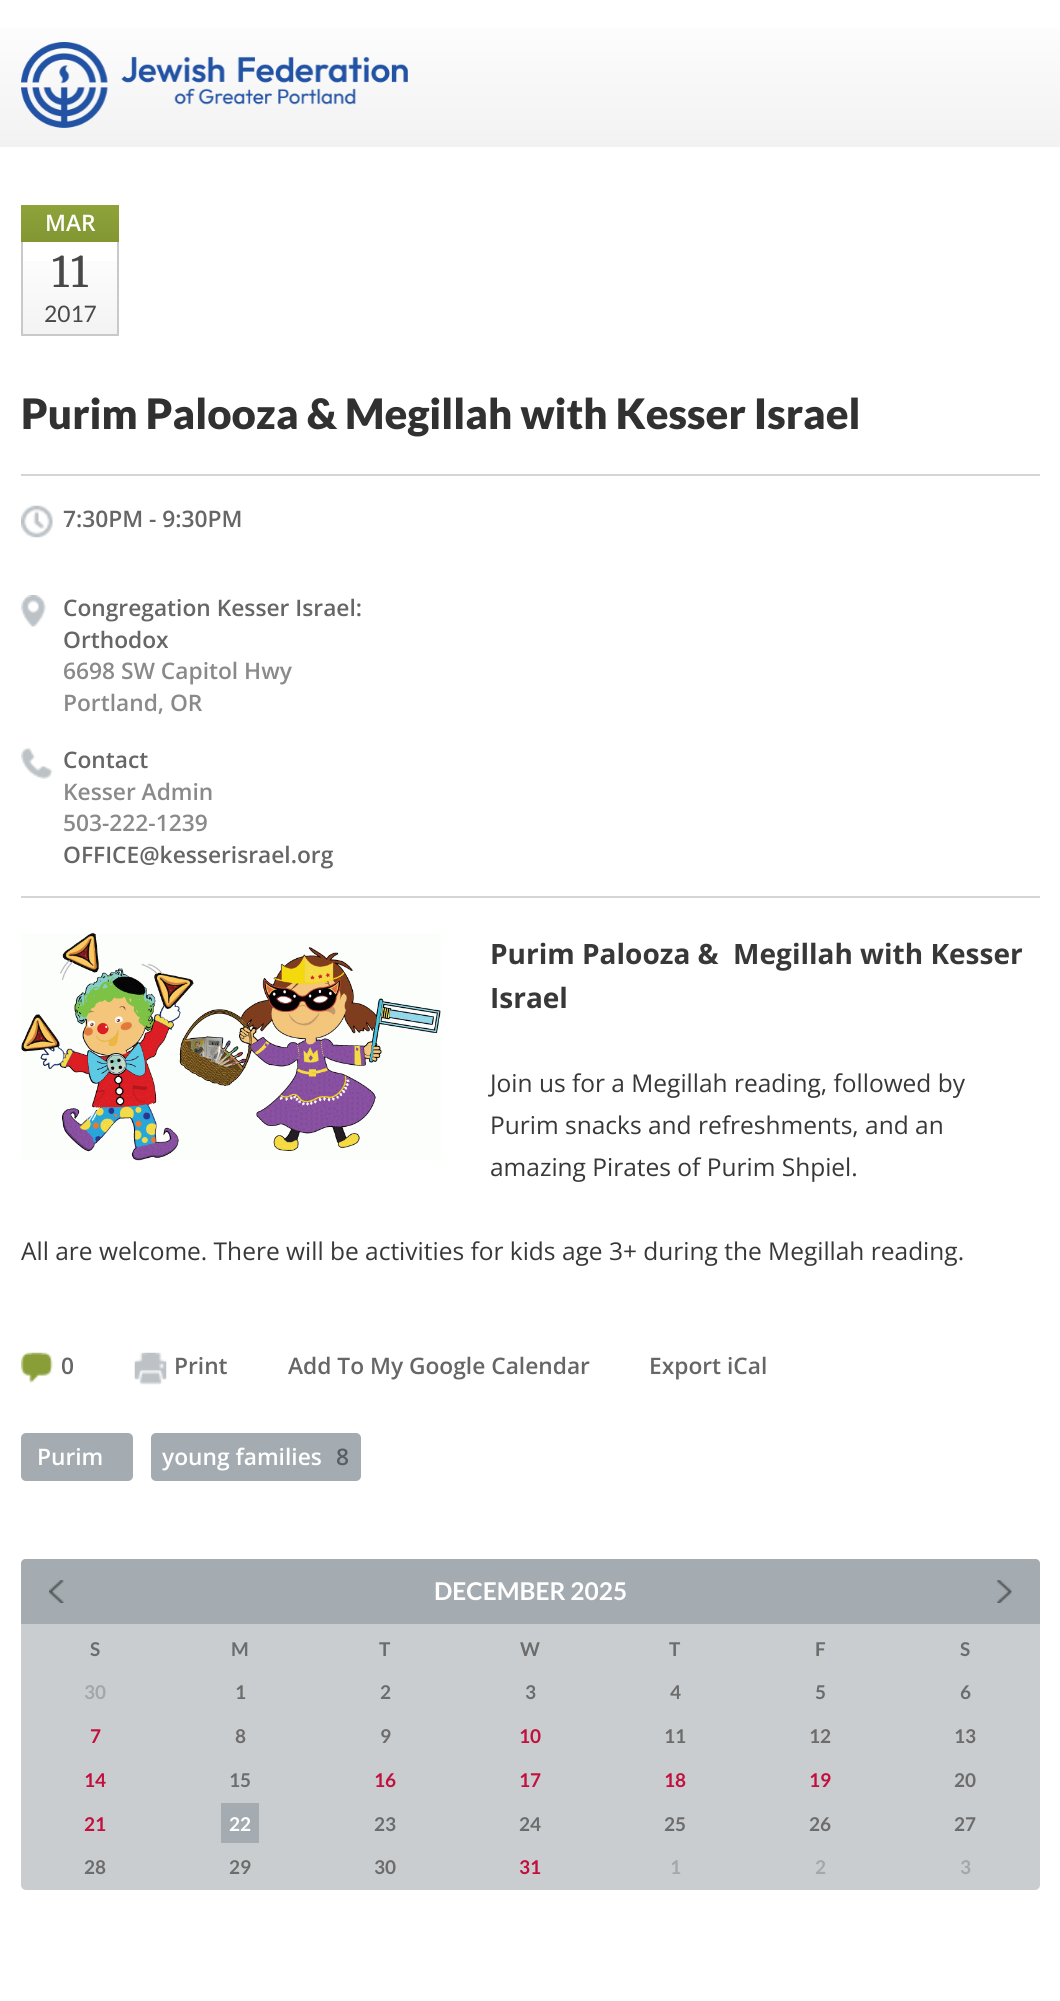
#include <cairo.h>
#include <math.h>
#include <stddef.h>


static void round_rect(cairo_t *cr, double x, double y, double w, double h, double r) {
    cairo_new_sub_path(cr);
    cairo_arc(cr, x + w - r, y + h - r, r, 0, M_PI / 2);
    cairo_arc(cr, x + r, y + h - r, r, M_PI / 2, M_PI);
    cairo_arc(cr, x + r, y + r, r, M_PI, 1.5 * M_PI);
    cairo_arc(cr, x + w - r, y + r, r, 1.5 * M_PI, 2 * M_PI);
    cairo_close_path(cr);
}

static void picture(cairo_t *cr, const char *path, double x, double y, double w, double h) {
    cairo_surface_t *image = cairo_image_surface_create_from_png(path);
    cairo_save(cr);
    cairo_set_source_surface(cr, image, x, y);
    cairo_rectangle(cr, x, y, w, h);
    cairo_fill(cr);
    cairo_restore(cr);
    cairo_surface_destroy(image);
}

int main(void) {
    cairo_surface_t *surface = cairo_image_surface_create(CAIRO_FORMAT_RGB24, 1060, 2001);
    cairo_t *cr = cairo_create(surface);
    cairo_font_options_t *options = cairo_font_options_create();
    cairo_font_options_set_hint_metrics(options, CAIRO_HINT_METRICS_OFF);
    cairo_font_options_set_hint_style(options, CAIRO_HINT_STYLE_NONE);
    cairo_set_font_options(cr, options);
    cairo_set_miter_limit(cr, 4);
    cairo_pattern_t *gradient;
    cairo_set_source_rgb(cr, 1, 1, 1);
    cairo_paint(cr);
    gradient = cairo_pattern_create_linear(530, 0, 530, 147);
    cairo_pattern_add_color_stop_rgba(gradient, 0, 1, 1, 1, 1);
    cairo_pattern_add_color_stop_rgba(gradient, 1, 0.949, 0.949, 0.949, 1);
    cairo_set_source(cr, gradient);
    cairo_pattern_destroy(gradient);
    cairo_rectangle(cr, 0, 28, 1060, 119);
    cairo_fill(cr);
    picture(cr, "img1.png", 21, 42, 387, 86);
    gradient = cairo_pattern_create_linear(70, 205, 70, 242);
    cairo_pattern_add_color_stop_rgba(gradient, 0, 0.557, 0.639, 0.227, 1);
    cairo_pattern_add_color_stop_rgba(gradient, 1, 0.51, 0.588, 0.2, 1);
    cairo_set_source(cr, gradient);
    cairo_pattern_destroy(gradient);
    cairo_rectangle(cr, 21, 205, 98, 37);
    cairo_fill(cr);
    cairo_select_font_face(cr, "Open Sans SemiBold", CAIRO_FONT_SLANT_NORMAL, CAIRO_FONT_WEIGHT_NORMAL);
    cairo_set_font_size(cr, 22.75);
    cairo_set_source_rgb(cr, 1, 1, 1);
    cairo_move_to(cr, 45, 231);
    cairo_show_text(cr, "MAR");
    gradient = cairo_pattern_create_linear(70, 242, 70, 334);
    cairo_pattern_add_color_stop_rgba(gradient, 0, 1, 1, 1, 1);
    cairo_pattern_add_color_stop_rgba(gradient, 1, 0.953, 0.953, 0.953, 1);
    cairo_set_source(cr, gradient);
    cairo_pattern_destroy(gradient);
    cairo_rectangle(cr, 23, 261, 94, 73);
    cairo_fill(cr);
    cairo_set_source_rgb(cr, 0.788, 0.788, 0.788);
    cairo_rectangle(cr, 117, 242, 2, 94);
    cairo_fill(cr);
    cairo_rectangle(cr, 21, 334, 98, 2);
    cairo_fill(cr);
    cairo_rectangle(cr, 21, 242, 2, 94);
    cairo_fill(cr);
    cairo_select_font_face(cr, "Merriweather", CAIRO_FONT_SLANT_NORMAL, CAIRO_FONT_WEIGHT_NORMAL);
    cairo_set_font_size(cr, 42);
    cairo_set_source_rgb(cr, 0.282, 0.282, 0.282);
    cairo_move_to(cr, 51, 287);
    cairo_show_text(cr, "11");
    cairo_select_font_face(cr, "Lato", CAIRO_FONT_SLANT_NORMAL, CAIRO_FONT_WEIGHT_NORMAL);
    cairo_set_font_size(cr, 22.75);
    cairo_move_to(cr, 44, 322);
    cairo_show_text(cr, "2017");
    cairo_select_font_face(cr, "Lato Black", CAIRO_FONT_SLANT_NORMAL, CAIRO_FONT_WEIGHT_NORMAL);
    cairo_set_font_size(cr, 42);
    cairo_set_source_rgb(cr, 0.192, 0.192, 0.192);
    cairo_move_to(cr, 21, 429);
    cairo_show_text(cr, "Purim Palooza & Megillah with Kesser Israel");
    cairo_set_source_rgb(cr, 0.835, 0.835, 0.835);
    cairo_rectangle(cr, 21, 474, 1019, 2);
    cairo_fill(cr);
    picture(cr, "img2.png", 21, 505, 32, 33);
    cairo_select_font_face(cr, "Open Sans SemiBold", CAIRO_FONT_SLANT_NORMAL, CAIRO_FONT_WEIGHT_NORMAL);
    cairo_set_font_size(cr, 22.75);
    cairo_set_source_rgb(cr, 0.4, 0.4, 0.4);
    cairo_move_to(cr, 63, 527);
    cairo_show_text(cr, "7:30PM - 9:30PM");
    picture(cr, "img3.png", 21, 595, 25, 32);
    cairo_move_to(cr, 63, 616);
    cairo_show_text(cr, "Congregation Kesser Israel:");
    cairo_move_to(cr, 63, 648);
    cairo_show_text(cr, "Orthodox");
    cairo_set_source_rgb(cr, 0.541, 0.541, 0.541);
    cairo_move_to(cr, 63, 679);
    cairo_show_text(cr, "6698 SW Capitol Hwy");
    cairo_move_to(cr, 63, 711);
    cairo_show_text(cr, "Portland, OR");
    picture(cr, "img4.png", 21, 747, 32, 32);
    cairo_set_source_rgb(cr, 0.4, 0.4, 0.4);
    cairo_move_to(cr, 63, 768);
    cairo_show_text(cr, "Contact");
    cairo_set_source_rgb(cr, 0.541, 0.541, 0.541);
    cairo_move_to(cr, 63, 800);
    cairo_show_text(cr, "Kesser Admin");
    cairo_move_to(cr, 63, 831);
    cairo_show_text(cr, "503-222-1239");
    cairo_set_source_rgb(cr, 0.4, 0.4, 0.4);
    cairo_move_to(cr, 63, 863);
    cairo_show_text(cr, "OFFICE@kesserisrael.org");
    cairo_set_source_rgb(cr, 0.835, 0.835, 0.835);
    cairo_rectangle(cr, 21, 896, 1019, 2);
    cairo_fill(cr);
    picture(cr, "img5.png", 21, 932, 420, 229);
    cairo_select_font_face(cr, "Open Sans", CAIRO_FONT_SLANT_NORMAL, CAIRO_FONT_WEIGHT_BOLD);
    cairo_set_font_size(cr, 28);
    cairo_set_source_rgb(cr, 0.22, 0.22, 0.22);
    cairo_move_to(cr, 490, 964);
    cairo_show_text(cr, "Purim Palooza &  Megillah with Kesser");
    cairo_move_to(cr, 490, 1008);
    cairo_show_text(cr, "Israel");
    cairo_select_font_face(cr, "Open Sans", CAIRO_FONT_SLANT_NORMAL, CAIRO_FONT_WEIGHT_NORMAL);
    cairo_set_font_size(cr, 24.5);
    cairo_move_to(cr, 490, 1092);
    cairo_show_text(cr, "Join us for a Megillah reading, followed by");
    cairo_move_to(cr, 490, 1134);
    cairo_show_text(cr, "Purim snacks and refreshments, and an");
    cairo_move_to(cr, 490, 1176);
    cairo_show_text(cr, "amazing Pirates of Purim Shpiel.");
    cairo_move_to(cr, 21, 1260);
    cairo_show_text(cr, "All are welcome. There will be activities for kids age 3+ during the Megillah reading.");
    picture(cr, "img6.png", 21, 1352, 32, 31);
    cairo_select_font_face(cr, "Open Sans SemiBold", CAIRO_FONT_SLANT_NORMAL, CAIRO_FONT_WEIGHT_NORMAL);
    cairo_set_font_size(cr, 22.75);
    cairo_set_source_rgb(cr, 0.4, 0.4, 0.4);
    cairo_move_to(cr, 61, 1374);
    cairo_show_text(cr, "0");
    picture(cr, "img7.png", 134, 1352, 33, 33);
    cairo_move_to(cr, 174, 1374);
    cairo_show_text(cr, "Print");
    cairo_move_to(cr, 288, 1374);
    cairo_show_text(cr, "Add To My Google Calendar");
    cairo_move_to(cr, 649, 1374);
    cairo_show_text(cr, "Export iCal");
    cairo_set_source_rgb(cr, 0.643, 0.675, 0.694);
    round_rect(cr, 21, 1433, 112, 48, 5);
    cairo_fill(cr);
    cairo_set_source_rgb(cr, 1, 1, 1);
    cairo_move_to(cr, 37, 1465);
    cairo_show_text(cr, "Purim");
    cairo_set_source_rgb(cr, 0.643, 0.675, 0.694);
    round_rect(cr, 151, 1433, 210, 48, 5);
    cairo_fill(cr);
    cairo_set_source_rgb(cr, 1, 1, 1);
    cairo_move_to(cr, 162, 1465);
    cairo_show_text(cr, "young families");
    cairo_set_source_rgb(cr, 0.341, 0.373, 0.388);
    cairo_move_to(cr, 336, 1465);
    cairo_show_text(cr, "8");
    cairo_set_source_rgb(cr, 0.792, 0.804, 0.812);
    round_rect(cr, 21, 1559, 1019, 331, 5);
    cairo_fill(cr);
    cairo_set_source_rgb(cr, 0.643, 0.675, 0.694);
    cairo_new_path(cr);
    cairo_move_to(cr, 26, 1559);
    cairo_line_to(cr, 1035, 1559);
    cairo_curve_to(cr, 1038, 1559, 1040, 1561, 1040, 1564);
    cairo_line_to(cr, 1040, 1624);
    cairo_line_to(cr, 21, 1624);
    cairo_line_to(cr, 21, 1564);
    cairo_curve_to(cr, 21, 1561, 23, 1559, 26, 1559);
    cairo_close_path(cr);
    cairo_fill(cr);
    picture(cr, "img8.png", 49, 1580, 15, 23);
    cairo_select_font_face(cr, "Lato", CAIRO_FONT_SLANT_NORMAL, CAIRO_FONT_WEIGHT_BOLD);
    cairo_set_font_size(cr, 24.5);
    cairo_set_source_rgb(cr, 1, 1, 1);
    cairo_move_to(cr, 434, 1600);
    cairo_show_text(cr, "DECEMBER 2025");
    picture(cr, "img9.png", 996, 1580, 16, 23);
    cairo_set_font_size(cr, 19);
    cairo_set_source_rgb(cr, 0.424, 0.424, 0.424);
    cairo_move_to(cr, 90, 1656);
    cairo_show_text(cr, "S");
    cairo_move_to(cr, 231, 1656);
    cairo_show_text(cr, "M");
    cairo_move_to(cr, 379, 1656);
    cairo_show_text(cr, "T");
    cairo_move_to(cr, 520, 1656);
    cairo_show_text(cr, "W");
    cairo_move_to(cr, 669, 1656);
    cairo_show_text(cr, "T");
    cairo_move_to(cr, 815, 1656);
    cairo_show_text(cr, "F");
    cairo_move_to(cr, 960, 1656);
    cairo_show_text(cr, "S");
    cairo_set_source_rgb(cr, 0.651, 0.651, 0.651);
    cairo_move_to(cr, 84, 1699);
    cairo_show_text(cr, "30");
    cairo_set_source_rgb(cr, 0.424, 0.424, 0.424);
    cairo_move_to(cr, 235, 1699);
    cairo_show_text(cr, "1");
    cairo_move_to(cr, 380, 1699);
    cairo_show_text(cr, "2");
    cairo_move_to(cr, 525, 1699);
    cairo_show_text(cr, "3");
    cairo_move_to(cr, 670, 1699);
    cairo_show_text(cr, "4");
    cairo_move_to(cr, 815, 1699);
    cairo_show_text(cr, "5");
    cairo_move_to(cr, 960, 1699);
    cairo_show_text(cr, "6");
    cairo_set_source_rgb(cr, 0.757, 0.059, 0.243);
    cairo_move_to(cr, 90, 1743);
    cairo_show_text(cr, "7");
    cairo_set_source_rgb(cr, 0.424, 0.424, 0.424);
    cairo_move_to(cr, 235, 1743);
    cairo_show_text(cr, "8");
    cairo_move_to(cr, 380, 1743);
    cairo_show_text(cr, "9");
    cairo_set_source_rgb(cr, 0.757, 0.059, 0.243);
    cairo_move_to(cr, 519, 1743);
    cairo_show_text(cr, "10");
    cairo_set_source_rgb(cr, 0.424, 0.424, 0.424);
    cairo_move_to(cr, 664, 1743);
    cairo_show_text(cr, "11");
    cairo_move_to(cr, 809, 1743);
    cairo_show_text(cr, "12");
    cairo_move_to(cr, 954, 1743);
    cairo_show_text(cr, "13");
    cairo_set_source_rgb(cr, 0.757, 0.059, 0.243);
    cairo_move_to(cr, 84, 1787);
    cairo_show_text(cr, "14");
    cairo_set_source_rgb(cr, 0.424, 0.424, 0.424);
    cairo_move_to(cr, 229, 1787);
    cairo_show_text(cr, "15");
    cairo_set_source_rgb(cr, 0.757, 0.059, 0.243);
    cairo_move_to(cr, 374, 1787);
    cairo_show_text(cr, "16");
    cairo_move_to(cr, 519, 1787);
    cairo_show_text(cr, "17");
    cairo_move_to(cr, 664, 1787);
    cairo_show_text(cr, "18");
    cairo_move_to(cr, 809, 1787);
    cairo_show_text(cr, "19");
    cairo_set_source_rgb(cr, 0.424, 0.424, 0.424);
    cairo_move_to(cr, 954, 1787);
    cairo_show_text(cr, "20");
    cairo_set_source_rgb(cr, 0.757, 0.059, 0.243);
    cairo_move_to(cr, 84, 1831);
    cairo_show_text(cr, "21");
    cairo_set_source_rgb(cr, 0.643, 0.675, 0.694);
    cairo_rectangle(cr, 221, 1803, 38, 40);
    cairo_fill(cr);
    cairo_set_source_rgb(cr, 1, 1, 1);
    cairo_move_to(cr, 229, 1831);
    cairo_show_text(cr, "22");
    cairo_set_source_rgb(cr, 0.424, 0.424, 0.424);
    cairo_move_to(cr, 374, 1831);
    cairo_show_text(cr, "23");
    cairo_move_to(cr, 519, 1831);
    cairo_show_text(cr, "24");
    cairo_move_to(cr, 664, 1831);
    cairo_show_text(cr, "25");
    cairo_move_to(cr, 809, 1831);
    cairo_show_text(cr, "26");
    cairo_move_to(cr, 954, 1831);
    cairo_show_text(cr, "27");
    cairo_move_to(cr, 84, 1874);
    cairo_show_text(cr, "28");
    cairo_move_to(cr, 229, 1874);
    cairo_show_text(cr, "29");
    cairo_move_to(cr, 374, 1874);
    cairo_show_text(cr, "30");
    cairo_set_source_rgb(cr, 0.757, 0.059, 0.243);
    cairo_move_to(cr, 519, 1874);
    cairo_show_text(cr, "31");
    cairo_set_source_rgb(cr, 0.651, 0.651, 0.651);
    cairo_move_to(cr, 670, 1874);
    cairo_show_text(cr, "1");
    cairo_move_to(cr, 815, 1874);
    cairo_show_text(cr, "2");
    cairo_move_to(cr, 960, 1874);
    cairo_show_text(cr, "3");
    cairo_surface_write_to_png(surface, "page.png");
    cairo_font_options_destroy(options);
    cairo_destroy(cr);
    cairo_surface_destroy(surface);
    return 0;
}
